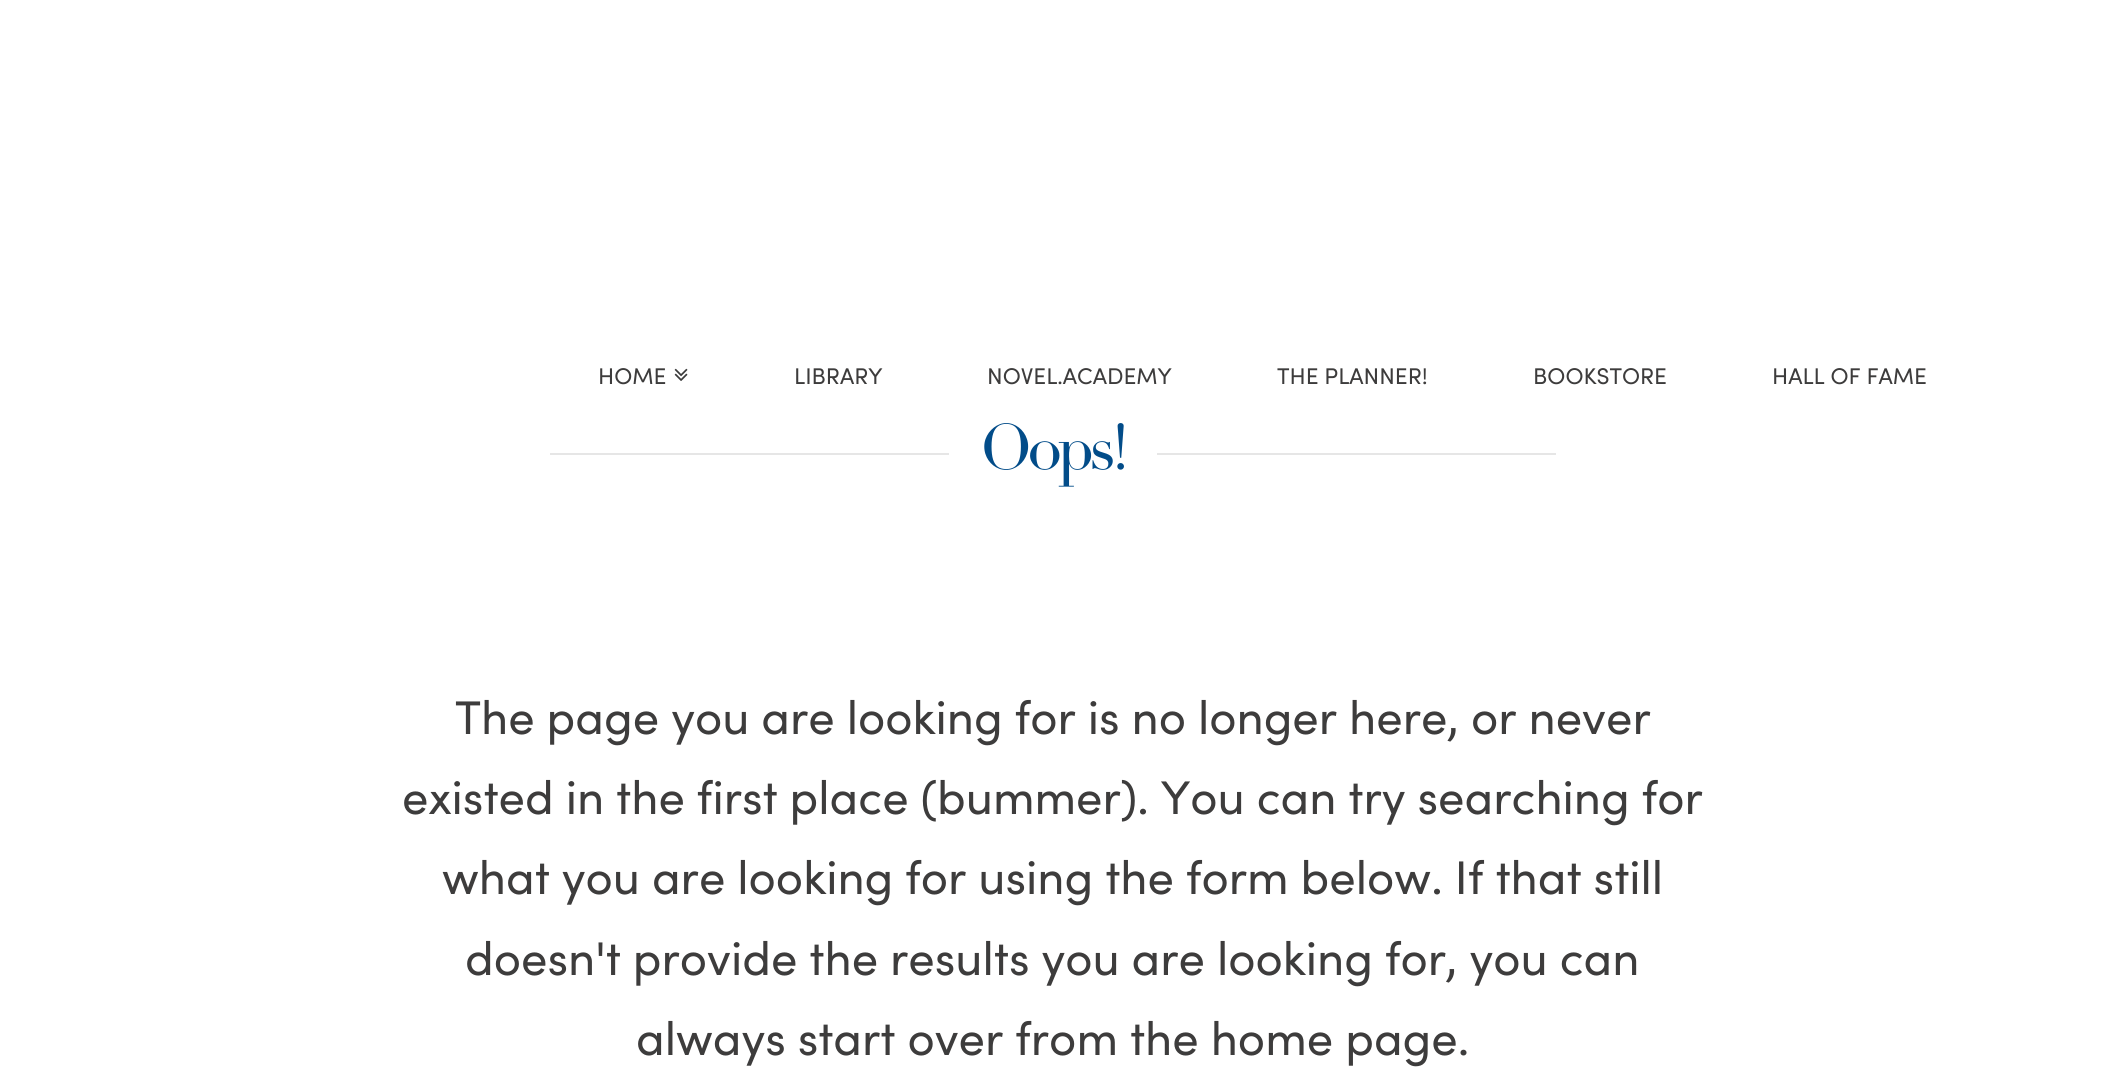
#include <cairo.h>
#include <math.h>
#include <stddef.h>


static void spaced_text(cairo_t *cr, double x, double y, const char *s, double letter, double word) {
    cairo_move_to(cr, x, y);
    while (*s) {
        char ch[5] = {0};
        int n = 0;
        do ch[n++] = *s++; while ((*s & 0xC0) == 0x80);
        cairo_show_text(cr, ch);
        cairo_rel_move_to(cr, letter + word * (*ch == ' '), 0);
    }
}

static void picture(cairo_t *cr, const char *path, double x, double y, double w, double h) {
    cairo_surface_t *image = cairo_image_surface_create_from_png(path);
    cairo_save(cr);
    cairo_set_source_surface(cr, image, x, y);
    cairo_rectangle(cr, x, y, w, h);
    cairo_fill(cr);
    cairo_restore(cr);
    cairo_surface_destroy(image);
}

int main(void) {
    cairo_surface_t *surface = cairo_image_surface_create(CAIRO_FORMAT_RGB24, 2104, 1075);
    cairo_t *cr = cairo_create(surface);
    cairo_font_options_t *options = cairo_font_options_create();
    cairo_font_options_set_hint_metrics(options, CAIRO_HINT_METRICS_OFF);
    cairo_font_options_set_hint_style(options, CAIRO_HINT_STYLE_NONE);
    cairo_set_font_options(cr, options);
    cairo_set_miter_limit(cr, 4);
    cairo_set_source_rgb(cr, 1, 1, 1);
    cairo_paint(cr);
    cairo_select_font_face(cr, "Sofia", CAIRO_FONT_SLANT_NORMAL, CAIRO_FONT_WEIGHT_NORMAL);
    cairo_set_font_size(cr, 22.75);
    cairo_set_source_rgb(cr, 0.239, 0.235, 0.235);
    cairo_move_to(cr, 598, 384);
    cairo_show_text(cr, "HOME");
    picture(cr, "img1.png", 674, 368, 14, 13);
    cairo_move_to(cr, 794, 384);
    cairo_show_text(cr, "LIBRARY");
    cairo_move_to(cr, 987, 384);
    cairo_show_text(cr, "NOVEL.ACADEMY");
    cairo_move_to(cr, 1277, 384);
    cairo_show_text(cr, "THE PLANNER!");
    cairo_move_to(cr, 1533, 384);
    cairo_show_text(cr, "BOOKSTORE");
    cairo_move_to(cr, 1772, 384);
    cairo_show_text(cr, "HALL OF FAME");
    cairo_set_source_rgb(cr, 0.902, 0.902, 0.902);
    cairo_rectangle(cr, 550, 453, 399, 2);
    cairo_fill(cr);
    cairo_select_font_face(cr, "Didot", CAIRO_FONT_SLANT_NORMAL, CAIRO_FONT_WEIGHT_NORMAL);
    cairo_set_font_size(cr, 63);
    cairo_set_source_rgb(cr, 0.008, 0.298, 0.537);
    spaced_text(cr, 980, 469, "Oops!", -5.25, 0);
    cairo_set_source_rgb(cr, 0.902, 0.902, 0.902);
    cairo_rectangle(cr, 1157, 453, 399, 2);
    cairo_fill(cr);
    cairo_select_font_face(cr, "Sofia", CAIRO_FONT_SLANT_NORMAL, CAIRO_FONT_WEIGHT_NORMAL);
    cairo_set_font_size(cr, 47.25);
    cairo_set_source_rgb(cr, 0.239, 0.235, 0.235);
    cairo_move_to(cr, 455, 734);
    cairo_show_text(cr, "The page you are looking for is no longer here, or never");
    cairo_move_to(cr, 402, 814);
    cairo_show_text(cr, "existed in the first place (bummer). You can try searching for");
    cairo_move_to(cr, 442, 894);
    cairo_show_text(cr, "what you are looking for using the form below. If that still");
    cairo_move_to(cr, 465, 975);
    cairo_show_text(cr, "doesn't provide the results you are looking for, you can");
    cairo_move_to(cr, 636, 1055);
    cairo_show_text(cr, "always start over from the home page.");
    cairo_surface_write_to_png(surface, "page.png");
    cairo_font_options_destroy(options);
    cairo_destroy(cr);
    cairo_surface_destroy(surface);
    return 0;
}
